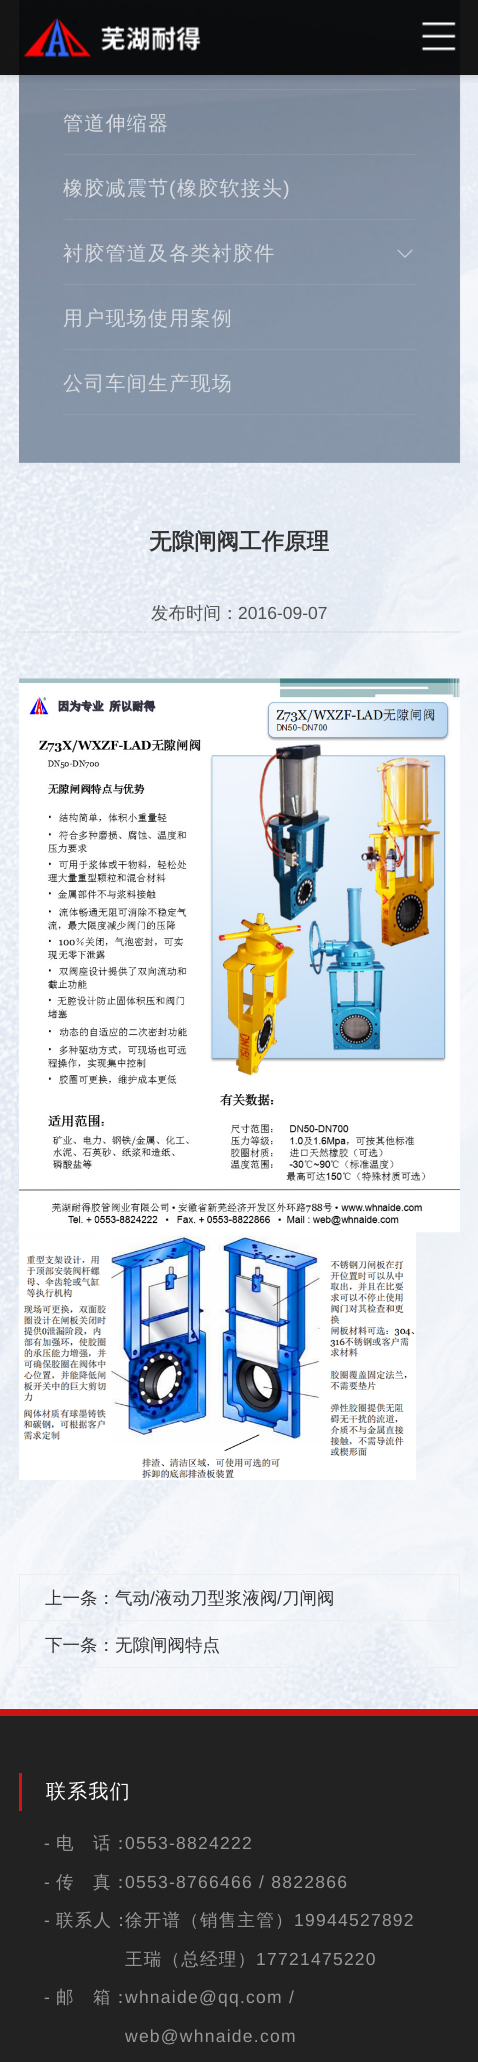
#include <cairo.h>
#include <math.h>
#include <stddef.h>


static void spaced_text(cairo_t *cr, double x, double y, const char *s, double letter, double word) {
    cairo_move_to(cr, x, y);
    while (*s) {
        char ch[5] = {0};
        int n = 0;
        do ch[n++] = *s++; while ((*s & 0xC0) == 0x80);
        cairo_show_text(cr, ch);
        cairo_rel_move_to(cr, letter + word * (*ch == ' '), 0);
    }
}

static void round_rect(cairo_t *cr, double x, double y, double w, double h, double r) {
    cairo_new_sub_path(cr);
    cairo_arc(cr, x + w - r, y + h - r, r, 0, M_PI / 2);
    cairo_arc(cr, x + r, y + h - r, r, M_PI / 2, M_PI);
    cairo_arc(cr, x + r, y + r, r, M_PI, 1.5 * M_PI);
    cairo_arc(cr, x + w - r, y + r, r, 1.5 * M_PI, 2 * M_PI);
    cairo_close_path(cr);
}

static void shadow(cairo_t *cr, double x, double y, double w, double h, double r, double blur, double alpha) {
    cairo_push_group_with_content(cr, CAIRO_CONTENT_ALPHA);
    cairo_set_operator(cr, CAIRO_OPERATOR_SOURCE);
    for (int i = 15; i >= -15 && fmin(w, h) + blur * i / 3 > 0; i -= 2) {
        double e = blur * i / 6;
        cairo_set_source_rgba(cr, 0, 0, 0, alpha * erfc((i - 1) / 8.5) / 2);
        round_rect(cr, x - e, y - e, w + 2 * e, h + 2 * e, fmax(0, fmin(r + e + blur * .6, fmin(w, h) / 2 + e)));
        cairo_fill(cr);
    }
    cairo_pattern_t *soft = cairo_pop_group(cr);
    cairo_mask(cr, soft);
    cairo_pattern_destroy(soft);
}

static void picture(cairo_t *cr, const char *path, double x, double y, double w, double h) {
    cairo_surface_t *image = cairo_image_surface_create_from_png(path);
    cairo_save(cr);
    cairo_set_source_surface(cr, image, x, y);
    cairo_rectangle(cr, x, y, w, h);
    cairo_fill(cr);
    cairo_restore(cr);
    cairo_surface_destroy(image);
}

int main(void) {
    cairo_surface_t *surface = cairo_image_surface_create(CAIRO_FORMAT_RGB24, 478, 2062);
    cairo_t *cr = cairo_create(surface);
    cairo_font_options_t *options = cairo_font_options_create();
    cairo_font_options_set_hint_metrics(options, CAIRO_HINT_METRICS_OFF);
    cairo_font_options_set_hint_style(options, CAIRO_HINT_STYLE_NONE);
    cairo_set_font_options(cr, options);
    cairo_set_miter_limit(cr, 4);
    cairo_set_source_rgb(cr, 1, 1, 1);
    cairo_paint(cr);
    picture(cr, "img3.png", 0, 0, 478, 1709);
    picture(cr, "img4.png", 19, 0, 442, 463);
    cairo_set_source_rgba(cr, 0, 0.11, 0.255, 0.34);
    cairo_rectangle(cr, 19, 0, 441, 463);
    cairo_fill(cr);
    cairo_set_source_rgba(cr, 1, 1, 1, 0.08);
    cairo_rectangle(cr, 63, 24, 353, 1);
    cairo_fill(cr);
    cairo_set_source_rgba(cr, 0, 0, 0, 0.7);
    cairo_rectangle(cr, 0, 0, 478, 75);
    cairo_fill(cr);
    cairo_set_source_rgba(cr, 1, 1, 1, 0.08);
    cairo_rectangle(cr, 63, 89, 353, 1);
    cairo_fill(cr);
    cairo_save(cr);
    cairo_rectangle(cr, 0, 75, 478, 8);
    cairo_clip(cr);
    cairo_set_source_rgb(cr, 0, 0, 0);
    shadow(cr, 0, 0, 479, 75, 0, 6, 0.2);
    cairo_restore(cr);
    cairo_set_source_rgba(cr, 0, 0, 0, 0.7);
    cairo_rectangle(cr, 0, 0, 478, 75);
    cairo_fill(cr);
    picture(cr, "img1.png", 23, 17, 178, 40);
    picture(cr, "img2.png", 421, 22, 35, 29);
    cairo_set_source_rgba(cr, 1, 1, 1, 0.08);
    cairo_rectangle(cr, 63, 154, 353, 1);
    cairo_fill(cr);
    cairo_select_font_face(cr, "WenQuanYi Zen Hei Medium", CAIRO_FONT_SLANT_NORMAL, CAIRO_FONT_WEIGHT_NORMAL);
    cairo_set_font_size(cr, 20);
    cairo_set_source_rgb(cr, 0.847, 0.863, 0.882);
    spaced_text(cr, 63, 130, "管道伸缩器", 1.25, 0);
    cairo_set_source_rgba(cr, 1, 1, 1, 0.08);
    cairo_rectangle(cr, 63, 219, 353, 1);
    cairo_fill(cr);
    cairo_set_source_rgb(cr, 0.847, 0.863, 0.882);
    spaced_text(cr, 63, 195, "橡胶减震节", 1.25, 0);
    cairo_select_font_face(cr, "Liberation Sans", CAIRO_FONT_SLANT_NORMAL, CAIRO_FONT_WEIGHT_NORMAL);
    spaced_text(cr, 169, 195, "(", 1.25, 0);
    cairo_select_font_face(cr, "WenQuanYi Zen Hei Medium", CAIRO_FONT_SLANT_NORMAL, CAIRO_FONT_WEIGHT_NORMAL);
    spaced_text(cr, 177, 195, "橡胶软接头", 1.25, 0);
    cairo_select_font_face(cr, "Liberation Sans", CAIRO_FONT_SLANT_NORMAL, CAIRO_FONT_WEIGHT_NORMAL);
    spaced_text(cr, 283, 195, ")", 1.25, 0);
    cairo_set_source_rgba(cr, 1, 1, 1, 0.08);
    cairo_rectangle(cr, 63, 284, 353, 1);
    cairo_fill(cr);
    cairo_select_font_face(cr, "WenQuanYi Zen Hei Medium", CAIRO_FONT_SLANT_NORMAL, CAIRO_FONT_WEIGHT_NORMAL);
    cairo_set_source_rgb(cr, 0.847, 0.863, 0.882);
    spaced_text(cr, 63, 260, "衬胶管道及各类衬胶件", 1.25, 0);
    picture(cr, "img5.png", 397, 249, 16, 9);
    cairo_set_source_rgba(cr, 1, 1, 1, 0.08);
    cairo_rectangle(cr, 63, 349, 353, 1);
    cairo_fill(cr);
    cairo_set_source_rgb(cr, 0.847, 0.863, 0.882);
    spaced_text(cr, 63, 325, "用户现场使用案例", 1.25, 0);
    cairo_set_source_rgba(cr, 1, 1, 1, 0.08);
    cairo_rectangle(cr, 63, 414, 353, 1);
    cairo_fill(cr);
    cairo_set_source_rgb(cr, 0.847, 0.863, 0.882);
    spaced_text(cr, 63, 390, "公司车间生产现场", 1.25, 0);
    cairo_new_path(cr);
    cairo_move_to(cr, 19, 632);
    cairo_line_to(cr, 460, 632);
    cairo_set_source_rgb(cr, 0.808, 0.808, 0.808);
    cairo_set_line_width(cr, 1.2);
    cairo_set_dash(cr, (double[]){1.25, 1.25}, 2, 0);
    cairo_stroke(cr);
    cairo_select_font_face(cr, "WenQuanYi Zen Hei", CAIRO_FONT_SLANT_NORMAL, CAIRO_FONT_WEIGHT_BOLD);
    cairo_set_font_size(cr, 22.5);
    cairo_set_source_rgb(cr, 0.2, 0.2, 0.2);
    cairo_move_to(cr, 149, 549);
    cairo_show_text(cr, "无隙闸阀工作原理");
    cairo_select_font_face(cr, "WenQuanYi Zen Hei Medium", CAIRO_FONT_SLANT_NORMAL, CAIRO_FONT_WEIGHT_NORMAL);
    cairo_set_font_size(cr, 17.5);
    cairo_set_source_rgb(cr, 0.318, 0.318, 0.318);
    cairo_move_to(cr, 151, 619);
    cairo_show_text(cr, "发布时间：");
    cairo_select_font_face(cr, "Liberation Sans", CAIRO_FONT_SLANT_NORMAL, CAIRO_FONT_WEIGHT_NORMAL);
    cairo_move_to(cr, 238, 619);
    cairo_show_text(cr, "2016-09-07");
    picture(cr, "img6.png", 19, 678, 441, 555);
    picture(cr, "img7.png", 19, 1232, 397, 248);
    cairo_rectangle(cr, 19.5, 1574.5, 440, 46);
    cairo_set_source_rgb(cr, 0.933, 0.933, 0.933);
    cairo_set_line_width(cr, 1);
    cairo_set_dash(cr, NULL, 0, 0);
    cairo_stroke(cr);
    cairo_select_font_face(cr, "WenQuanYi Zen Hei Medium", CAIRO_FONT_SLANT_NORMAL, CAIRO_FONT_WEIGHT_NORMAL);
    cairo_set_source_rgb(cr, 0.2, 0.2, 0.2);
    cairo_move_to(cr, 45, 1604);
    cairo_show_text(cr, "上一条：气动");
    cairo_select_font_face(cr, "Liberation Sans", CAIRO_FONT_SLANT_NORMAL, CAIRO_FONT_WEIGHT_NORMAL);
    cairo_move_to(cr, 150, 1604);
    cairo_show_text(cr, "/");
    cairo_select_font_face(cr, "WenQuanYi Zen Hei Medium", CAIRO_FONT_SLANT_NORMAL, CAIRO_FONT_WEIGHT_NORMAL);
    cairo_move_to(cr, 155, 1604);
    cairo_show_text(cr, "液动刀型浆液阀");
    cairo_select_font_face(cr, "Liberation Sans", CAIRO_FONT_SLANT_NORMAL, CAIRO_FONT_WEIGHT_NORMAL);
    cairo_move_to(cr, 277, 1604);
    cairo_show_text(cr, "/");
    cairo_select_font_face(cr, "WenQuanYi Zen Hei Medium", CAIRO_FONT_SLANT_NORMAL, CAIRO_FONT_WEIGHT_NORMAL);
    cairo_move_to(cr, 282, 1604);
    cairo_show_text(cr, "刀闸阀");
    cairo_rectangle(cr, 19.5, 1620.5, 440, 47);
    cairo_set_source_rgb(cr, 0.933, 0.933, 0.933);
    cairo_stroke(cr);
    cairo_set_source_rgb(cr, 0.2, 0.2, 0.2);
    cairo_move_to(cr, 45, 1651);
    cairo_show_text(cr, "下一条：无隙闸阀特点");
    cairo_set_source_rgb(cr, 0.133, 0.133, 0.133);
    cairo_rectangle(cr, 0, 1716, 478, 346);
    cairo_fill(cr);
    cairo_set_source_rgb(cr, 0.812, 0.082, 0.086);
    cairo_rectangle(cr, 0, 1709, 478, 7);
    cairo_fill(cr);
    cairo_rectangle(cr, 19, 1773, 3, 38);
    cairo_fill(cr);
    cairo_set_font_size(cr, 20);
    cairo_set_source_rgb(cr, 1, 1, 1);
    spaced_text(cr, 46, 1798, "联系我们", 1.25, 0);
    cairo_select_font_face(cr, "Liberation Sans", CAIRO_FONT_SLANT_NORMAL, CAIRO_FONT_WEIGHT_NORMAL);
    cairo_set_font_size(cr, 17.5);
    cairo_set_source_rgb(cr, 0.6, 0.6, 0.6);
    spaced_text(cr, 44, 1849, "-", 1.25, 0);
    cairo_select_font_face(cr, "WenQuanYi Zen Hei Medium", CAIRO_FONT_SLANT_NORMAL, CAIRO_FONT_WEIGHT_NORMAL);
    spaced_text(cr, 56, 1849, "电", 1.25, 0);
    spaced_text(cr, 93, 1849, "话：", 1.25, 0);
    cairo_select_font_face(cr, "Liberation Sans", CAIRO_FONT_SLANT_NORMAL, CAIRO_FONT_WEIGHT_NORMAL);
    spaced_text(cr, 125, 1849, "0553-8824222", 1.25, 0);
    spaced_text(cr, 44, 1888, "-", 1.25, 0);
    cairo_select_font_face(cr, "WenQuanYi Zen Hei Medium", CAIRO_FONT_SLANT_NORMAL, CAIRO_FONT_WEIGHT_NORMAL);
    spaced_text(cr, 56, 1888, "传", 1.25, 0);
    spaced_text(cr, 93, 1888, "真：", 1.25, 0);
    cairo_select_font_face(cr, "Liberation Sans", CAIRO_FONT_SLANT_NORMAL, CAIRO_FONT_WEIGHT_NORMAL);
    spaced_text(cr, 125, 1888, "0553-8766466 / 8822866", 1.25, 0);
    spaced_text(cr, 44, 1926, "-", 1.25, 0);
    cairo_select_font_face(cr, "WenQuanYi Zen Hei Medium", CAIRO_FONT_SLANT_NORMAL, CAIRO_FONT_WEIGHT_NORMAL);
    spaced_text(cr, 56, 1926, "联系人：", 1.25, 0);
    spaced_text(cr, 125, 1926, "徐开谱（销售主管）", 1.25, 0);
    cairo_select_font_face(cr, "Liberation Sans", CAIRO_FONT_SLANT_NORMAL, CAIRO_FONT_WEIGHT_NORMAL);
    spaced_text(cr, 294, 1926, "19944527892", 1.25, 0);
    cairo_select_font_face(cr, "WenQuanYi Zen Hei Medium", CAIRO_FONT_SLANT_NORMAL, CAIRO_FONT_WEIGHT_NORMAL);
    spaced_text(cr, 125, 1965, "王瑞（总经理）", 1.25, 0);
    cairo_select_font_face(cr, "Liberation Sans", CAIRO_FONT_SLANT_NORMAL, CAIRO_FONT_WEIGHT_NORMAL);
    spaced_text(cr, 256, 1965, "17721475220", 1.25, 0);
    spaced_text(cr, 44, 2003, "-", 1.25, 0);
    cairo_select_font_face(cr, "WenQuanYi Zen Hei Medium", CAIRO_FONT_SLANT_NORMAL, CAIRO_FONT_WEIGHT_NORMAL);
    spaced_text(cr, 56, 2003, "邮", 1.25, 0);
    spaced_text(cr, 93, 2003, "箱：", 1.25, 0);
    cairo_select_font_face(cr, "Liberation Sans", CAIRO_FONT_SLANT_NORMAL, CAIRO_FONT_WEIGHT_NORMAL);
    spaced_text(cr, 125, 2003, "whnaide@qq.com", 1.25, 0);
    spaced_text(cr, 289, 2003, "/", 1.25, 0);
    spaced_text(cr, 125, 2042, "web@whnaide.com", 1.25, 0);
    cairo_surface_write_to_png(surface, "page.png");
    cairo_font_options_destroy(options);
    cairo_destroy(cr);
    cairo_surface_destroy(surface);
    return 0;
}
